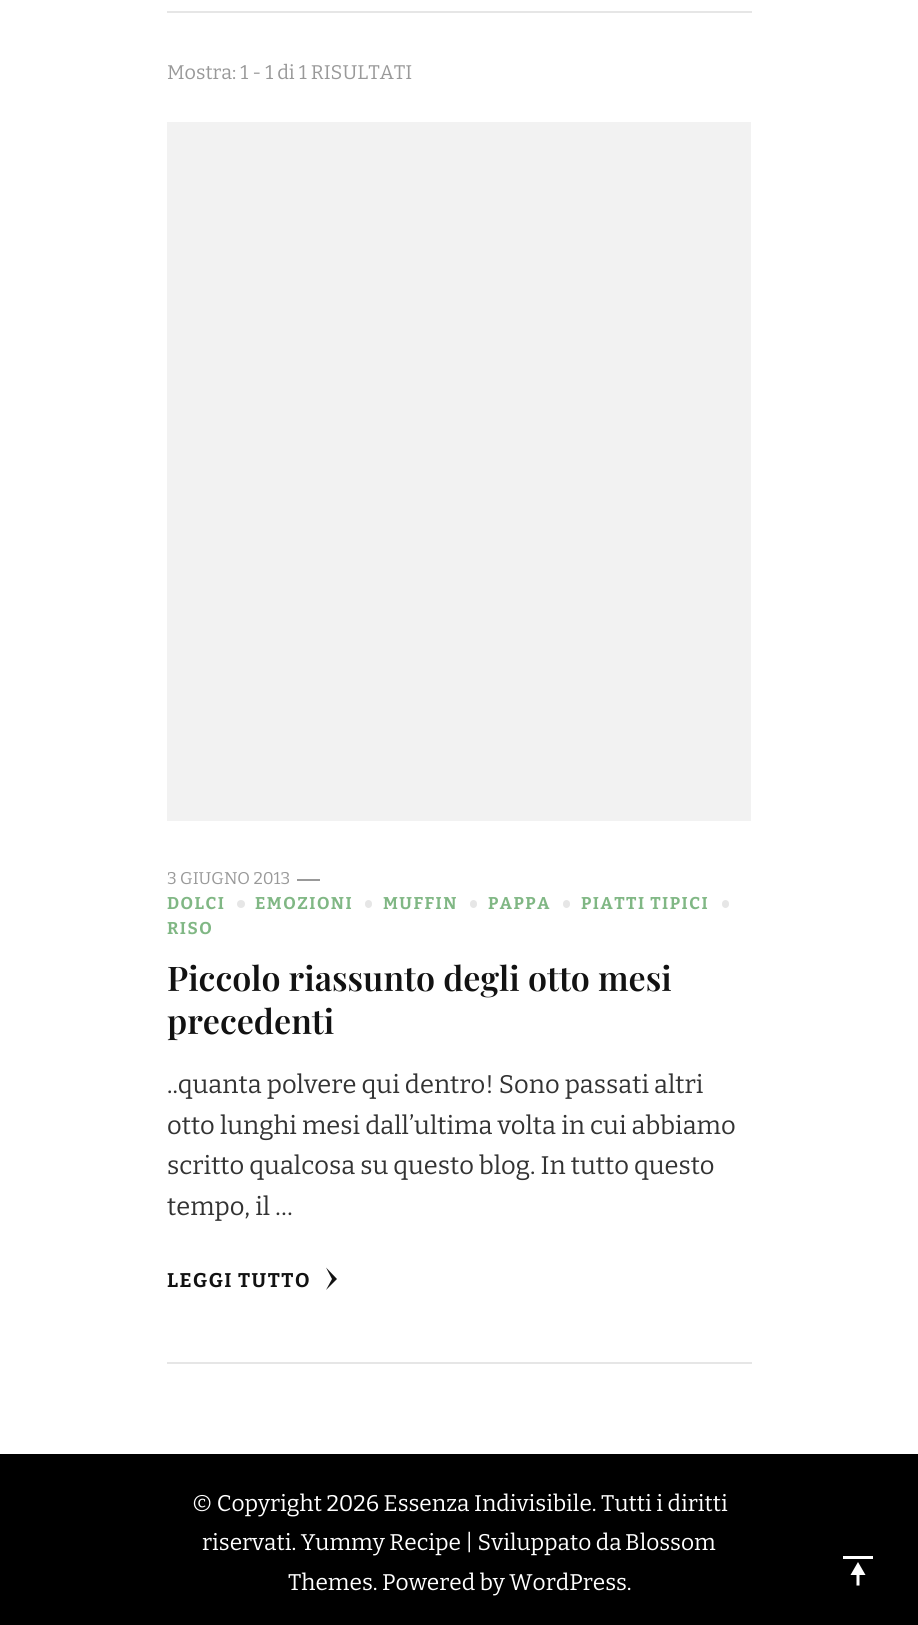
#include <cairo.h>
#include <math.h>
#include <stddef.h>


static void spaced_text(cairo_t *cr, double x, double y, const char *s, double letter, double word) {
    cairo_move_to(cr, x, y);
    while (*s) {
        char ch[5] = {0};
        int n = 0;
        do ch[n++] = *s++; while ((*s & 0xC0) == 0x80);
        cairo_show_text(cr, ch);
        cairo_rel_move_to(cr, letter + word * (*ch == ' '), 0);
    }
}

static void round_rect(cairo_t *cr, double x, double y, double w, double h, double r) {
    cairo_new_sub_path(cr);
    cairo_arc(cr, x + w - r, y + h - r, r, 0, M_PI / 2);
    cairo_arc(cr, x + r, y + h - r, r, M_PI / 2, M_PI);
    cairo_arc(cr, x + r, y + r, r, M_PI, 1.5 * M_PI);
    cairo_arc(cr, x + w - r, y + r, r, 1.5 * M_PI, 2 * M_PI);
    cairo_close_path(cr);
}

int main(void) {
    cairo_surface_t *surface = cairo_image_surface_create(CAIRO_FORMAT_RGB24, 918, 1625);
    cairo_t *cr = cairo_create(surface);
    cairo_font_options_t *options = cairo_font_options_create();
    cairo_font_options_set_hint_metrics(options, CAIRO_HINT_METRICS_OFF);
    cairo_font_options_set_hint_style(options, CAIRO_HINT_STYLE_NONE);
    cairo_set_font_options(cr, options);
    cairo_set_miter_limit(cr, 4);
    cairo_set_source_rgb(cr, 1, 1, 1);
    cairo_paint(cr);
    cairo_set_source_rgb(cr, 0.902, 0.902, 0.902);
    cairo_rectangle(cr, 167, 11, 585, 2);
    cairo_fill(cr);
    cairo_select_font_face(cr, "Bitter", CAIRO_FONT_SLANT_NORMAL, CAIRO_FONT_WEIGHT_NORMAL);
    cairo_set_font_size(cr, 19.75);
    cairo_set_source_rgb(cr, 0.6, 0.6, 0.6);
    cairo_move_to(cr, 167, 79);
    cairo_show_text(cr, "Mostra: 1 - 1 di 1 RISULTATI");
    cairo_set_source_rgb(cr, 0.902, 0.902, 0.902);
    cairo_rectangle(cr, 167, 1362, 585, 2);
    cairo_fill(cr);
    cairo_set_source_rgb(cr, 0.949, 0.949, 0.949);
    cairo_rectangle(cr, 167, 122, 584, 699);
    cairo_fill(cr);
    cairo_set_font_size(cr, 17);
    cairo_set_source_rgb(cr, 0.6, 0.6, 0.6);
    cairo_move_to(cr, 167, 884);
    cairo_show_text(cr, "3 GIUGNO 2013");
    cairo_rectangle(cr, 297, 879, 23, 2);
    cairo_fill(cr);
    cairo_select_font_face(cr, "Bitter", CAIRO_FONT_SLANT_NORMAL, CAIRO_FONT_WEIGHT_BOLD);
    cairo_set_source_rgb(cr, 0.502, 0.718, 0.518);
    spaced_text(cr, 167, 909, "DOLCI", 1.5, 0);
    cairo_set_source_rgb(cr, 0.902, 0.902, 0.902);
    cairo_new_path(cr);
    cairo_arc(cr, 241, 904, 4, 0, 2 * M_PI);
    cairo_fill(cr);
    cairo_set_source_rgb(cr, 0.502, 0.718, 0.518);
    spaced_text(cr, 255, 909, "EMOZIONI", 1.5, 0);
    cairo_set_source_rgb(cr, 0.902, 0.902, 0.902);
    round_rect(cr, 365, 900, 7, 8, 3.5);
    cairo_fill(cr);
    cairo_set_source_rgb(cr, 0.502, 0.718, 0.518);
    spaced_text(cr, 383, 909, "MUFFIN", 1.5, 0);
    cairo_set_source_rgb(cr, 0.902, 0.902, 0.902);
    round_rect(cr, 470, 900, 7, 8, 3.5);
    cairo_fill(cr);
    cairo_set_source_rgb(cr, 0.502, 0.718, 0.518);
    spaced_text(cr, 488, 909, "PAPPA", 1.5, 0);
    cairo_set_source_rgb(cr, 0.902, 0.902, 0.902);
    round_rect(cr, 563, 900, 7, 8, 3.5);
    cairo_fill(cr);
    cairo_set_source_rgb(cr, 0.502, 0.718, 0.518);
    spaced_text(cr, 581, 909, "PIATTI TIPICI", 1.5, 0);
    cairo_set_source_rgb(cr, 0.902, 0.902, 0.902);
    round_rect(cr, 722, 900, 7, 8, 3.5);
    cairo_fill(cr);
    cairo_set_source_rgb(cr, 0.502, 0.718, 0.518);
    spaced_text(cr, 167, 934, "RISO", 1.5, 0);
    cairo_select_font_face(cr, "Playfair Display SemiBold", CAIRO_FONT_SLANT_NORMAL, CAIRO_FONT_WEIGHT_NORMAL);
    cairo_set_font_size(cr, 34);
    cairo_set_source_rgb(cr, 0.071, 0.071, 0.071);
    cairo_move_to(cr, 167, 991);
    cairo_show_text(cr, "Piccolo riassunto degli otto mesi");
    cairo_move_to(cr, 167, 1034);
    cairo_show_text(cr, "precedenti");
    cairo_select_font_face(cr, "Bitter", CAIRO_FONT_SLANT_NORMAL, CAIRO_FONT_WEIGHT_NORMAL);
    cairo_set_font_size(cr, 25.5);
    cairo_set_source_rgb(cr, 0.2, 0.2, 0.2);
    cairo_move_to(cr, 167, 1093);
    cairo_show_text(cr, "..quanta polvere qui dentro! Sono passati altri");
    cairo_move_to(cr, 167, 1134);
    cairo_show_text(cr, "otto lunghi mesi dall’ultima volta in cui abbiamo");
    cairo_move_to(cr, 167, 1174);
    cairo_show_text(cr, "scritto qualcosa su questo blog. In tutto questo");
    cairo_move_to(cr, 167, 1215);
    cairo_show_text(cr, "tempo, il …");
    cairo_select_font_face(cr, "Bitter", CAIRO_FONT_SLANT_NORMAL, CAIRO_FONT_WEIGHT_BOLD);
    cairo_set_font_size(cr, 19.75);
    cairo_set_source_rgb(cr, 0.071, 0.071, 0.071);
    spaced_text(cr, 167, 1287, "LEGGI TUTTO", 1.5, 0);
    cairo_new_path(cr);
    cairo_move_to(cr, 337, 1279);
    cairo_line_to(cr, 326, 1290);
    cairo_line_to(cr, 332, 1279);
    cairo_line_to(cr, 326, 1267.5);
    cairo_close_path(cr);
    cairo_fill(cr);
    cairo_set_source_rgb(cr, 0, 0, 0);
    cairo_rectangle(cr, 0, 1454, 918, 171);
    cairo_fill(cr);
    cairo_select_font_face(cr, "Bitter", CAIRO_FONT_SLANT_NORMAL, CAIRO_FONT_WEIGHT_NORMAL);
    cairo_set_font_size(cr, 22.7);
    cairo_set_source_rgb(cr, 1, 1, 1);
    cairo_move_to(cr, 192, 1511);
    cairo_show_text(cr, "© Copyright 2026 Essenza Indivisibile. Tutti i diritti");
    cairo_move_to(cr, 202, 1550);
    cairo_show_text(cr, "riservati. Yummy Recipe | Sviluppato da");
    cairo_move_to(cr, 625, 1550);
    cairo_show_text(cr, "Blossom");
    cairo_move_to(cr, 288, 1590);
    cairo_show_text(cr, "Themes. Powered by WordPress.");
    cairo_rectangle(cr, 843, 1556, 30, 3);
    cairo_fill(cr);
    cairo_new_path(cr);
    cairo_move_to(cr, 865.5, 1575);
    cairo_line_to(cr, 858, 1562);
    cairo_line_to(cr, 850.5, 1575);
    cairo_line_to(cr, 856.5, 1575);
    cairo_line_to(cr, 856.5, 1585.5);
    cairo_line_to(cr, 859.5, 1585.5);
    cairo_line_to(cr, 859.5, 1575);
    cairo_close_path(cr);
    cairo_fill(cr);
    cairo_surface_write_to_png(surface, "page.png");
    cairo_font_options_destroy(options);
    cairo_destroy(cr);
    cairo_surface_destroy(surface);
    return 0;
}
